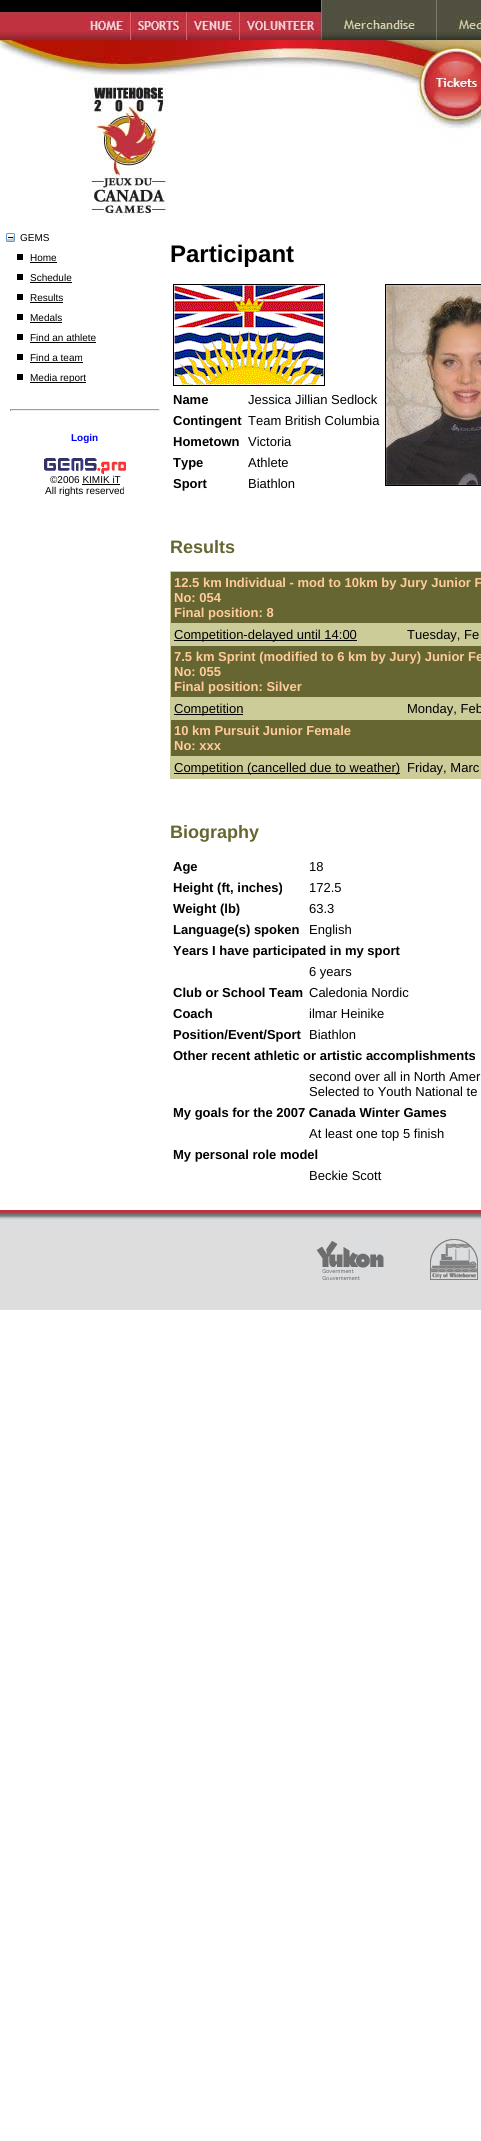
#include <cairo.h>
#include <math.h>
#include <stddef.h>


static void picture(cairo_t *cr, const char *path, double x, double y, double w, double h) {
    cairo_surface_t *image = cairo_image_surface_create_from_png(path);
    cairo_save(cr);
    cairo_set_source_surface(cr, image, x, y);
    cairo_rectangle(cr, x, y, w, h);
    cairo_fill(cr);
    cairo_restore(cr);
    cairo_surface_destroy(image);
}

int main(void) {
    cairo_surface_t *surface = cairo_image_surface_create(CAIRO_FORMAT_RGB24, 481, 2141);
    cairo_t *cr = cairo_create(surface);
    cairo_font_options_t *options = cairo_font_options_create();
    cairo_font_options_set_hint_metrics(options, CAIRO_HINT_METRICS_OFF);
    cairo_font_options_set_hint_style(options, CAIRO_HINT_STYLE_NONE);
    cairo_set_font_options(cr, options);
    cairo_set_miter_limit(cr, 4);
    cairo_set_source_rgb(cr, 1, 1, 1);
    cairo_paint(cr);
    picture(cr, "img1.png", 0, 0, 481, 216);
    picture(cr, "img2.png", 6, 233, 9, 9);
    cairo_select_font_face(cr, "Liberation Sans", CAIRO_FONT_SLANT_NORMAL, CAIRO_FONT_WEIGHT_NORMAL);
    cairo_set_font_size(cr, 10);
    cairo_set_source_rgb(cr, 0, 0, 0);
    cairo_move_to(cr, 20, 241);
    cairo_show_text(cr, "GEMS");
    cairo_rectangle(cr, 17, 254, 6, 6);
    cairo_fill(cr);
    cairo_move_to(cr, 30, 261);
    cairo_show_text(cr, "Home");
    cairo_rectangle(cr, 30, 262, 27, 1);
    cairo_fill(cr);
    cairo_rectangle(cr, 17, 274, 6, 6);
    cairo_fill(cr);
    cairo_move_to(cr, 30, 281);
    cairo_show_text(cr, "Schedule");
    cairo_rectangle(cr, 30, 282, 42, 1);
    cairo_fill(cr);
    cairo_rectangle(cr, 17, 294, 6, 6);
    cairo_fill(cr);
    cairo_move_to(cr, 30, 301);
    cairo_show_text(cr, "Results");
    cairo_rectangle(cr, 30, 302, 33, 1);
    cairo_fill(cr);
    cairo_rectangle(cr, 17, 314, 6, 6);
    cairo_fill(cr);
    cairo_move_to(cr, 30, 321);
    cairo_show_text(cr, "Medals");
    cairo_rectangle(cr, 30, 322, 32, 1);
    cairo_fill(cr);
    cairo_rectangle(cr, 17, 334, 6, 6);
    cairo_fill(cr);
    cairo_move_to(cr, 30, 341);
    cairo_show_text(cr, "Find an athlete");
    cairo_rectangle(cr, 30, 342, 66, 1);
    cairo_fill(cr);
    cairo_rectangle(cr, 17, 354, 6, 6);
    cairo_fill(cr);
    cairo_move_to(cr, 30, 361);
    cairo_show_text(cr, "Find a team");
    cairo_rectangle(cr, 30, 362, 53, 1);
    cairo_fill(cr);
    cairo_rectangle(cr, 17, 374, 6, 6);
    cairo_fill(cr);
    cairo_rectangle(cr, 30, 382, 56, 1);
    cairo_fill(cr);
    cairo_move_to(cr, 30, 381);
    cairo_show_text(cr, "Media report");
    cairo_set_source_rgb(cr, 0.624, 0.624, 0.624);
    cairo_rectangle(cr, 10, 409, 150, 1);
    cairo_fill(cr);
    cairo_set_source_rgb(cr, 0.933, 0.933, 0.933);
    cairo_rectangle(cr, 159, 409, 1, 2);
    cairo_fill(cr);
    cairo_rectangle(cr, 10, 410, 150, 1);
    cairo_fill(cr);
    cairo_set_source_rgb(cr, 0.624, 0.624, 0.624);
    cairo_rectangle(cr, 10, 409, 1, 2);
    cairo_fill(cr);
    cairo_select_font_face(cr, "Liberation Sans", CAIRO_FONT_SLANT_NORMAL, CAIRO_FONT_WEIGHT_BOLD);
    cairo_set_source_rgb(cr, 0, 0, 1);
    cairo_move_to(cr, 71, 441);
    cairo_show_text(cr, "Login");
    picture(cr, "img3.png", 44, 458, 82, 16);
    cairo_select_font_face(cr, "Liberation Sans", CAIRO_FONT_SLANT_NORMAL, CAIRO_FONT_WEIGHT_NORMAL);
    cairo_set_source_rgb(cr, 0, 0, 0);
    cairo_move_to(cr, 50, 483);
    cairo_show_text(cr, "©2006 KIMIK iT");
    cairo_rectangle(cr, 82, 484, 38, 1);
    cairo_fill(cr);
    cairo_move_to(cr, 45, 494);
    cairo_show_text(cr, "All rights reserved");
    cairo_select_font_face(cr, "Liberation Sans", CAIRO_FONT_SLANT_NORMAL, CAIRO_FONT_WEIGHT_BOLD);
    cairo_set_font_size(cr, 24);
    cairo_move_to(cr, 170, 262);
    cairo_show_text(cr, "Participant");
    cairo_rectangle(cr, 173.5, 284.5, 151, 101);
    cairo_set_line_width(cr, 1);
    cairo_stroke(cr);
    picture(cr, "img4.png", 174, 285, 150, 100);
    cairo_rectangle(cr, 385.5, 284.5, 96, 201);
    cairo_stroke(cr);
    picture(cr, "img5.png", 386, 285, 95, 200);
    cairo_set_font_size(cr, 13);
    cairo_move_to(cr, 173, 404);
    cairo_show_text(cr, "Name");
    cairo_select_font_face(cr, "Liberation Sans", CAIRO_FONT_SLANT_NORMAL, CAIRO_FONT_WEIGHT_NORMAL);
    cairo_move_to(cr, 248, 404);
    cairo_show_text(cr, "Jessica Jillian Sedlock");
    cairo_select_font_face(cr, "Liberation Sans", CAIRO_FONT_SLANT_NORMAL, CAIRO_FONT_WEIGHT_BOLD);
    cairo_move_to(cr, 173, 425);
    cairo_show_text(cr, "Contingent");
    cairo_select_font_face(cr, "Liberation Sans", CAIRO_FONT_SLANT_NORMAL, CAIRO_FONT_WEIGHT_NORMAL);
    cairo_move_to(cr, 248, 425);
    cairo_show_text(cr, "Team British Columbia");
    cairo_select_font_face(cr, "Liberation Sans", CAIRO_FONT_SLANT_NORMAL, CAIRO_FONT_WEIGHT_BOLD);
    cairo_move_to(cr, 173, 446);
    cairo_show_text(cr, "Hometown");
    cairo_select_font_face(cr, "Liberation Sans", CAIRO_FONT_SLANT_NORMAL, CAIRO_FONT_WEIGHT_NORMAL);
    cairo_move_to(cr, 248, 446);
    cairo_show_text(cr, "Victoria");
    cairo_select_font_face(cr, "Liberation Sans", CAIRO_FONT_SLANT_NORMAL, CAIRO_FONT_WEIGHT_BOLD);
    cairo_move_to(cr, 173, 467);
    cairo_show_text(cr, "Type");
    cairo_select_font_face(cr, "Liberation Sans", CAIRO_FONT_SLANT_NORMAL, CAIRO_FONT_WEIGHT_NORMAL);
    cairo_move_to(cr, 248, 467);
    cairo_show_text(cr, "Athlete");
    cairo_select_font_face(cr, "Liberation Sans", CAIRO_FONT_SLANT_NORMAL, CAIRO_FONT_WEIGHT_BOLD);
    cairo_move_to(cr, 173, 488);
    cairo_show_text(cr, "Sport");
    cairo_select_font_face(cr, "Liberation Sans", CAIRO_FONT_SLANT_NORMAL, CAIRO_FONT_WEIGHT_NORMAL);
    cairo_move_to(cr, 248, 488);
    cairo_show_text(cr, "Biathlon");
    cairo_select_font_face(cr, "Liberation Sans", CAIRO_FONT_SLANT_NORMAL, CAIRO_FONT_WEIGHT_BOLD);
    cairo_set_font_size(cr, 18);
    cairo_set_source_rgb(cr, 0.4, 0.4, 0.2);
    cairo_move_to(cr, 170, 553);
    cairo_show_text(cr, "Results");
    cairo_rectangle(cr, 171, 572, 310, 51);
    cairo_fill(cr);
    cairo_set_source_rgb(cr, 0.8, 0.8, 0.6);
    cairo_rectangle(cr, 170, 571, 311, 1);
    cairo_fill(cr);
    cairo_rectangle(cr, 170, 623, 311, 1);
    cairo_fill(cr);
    cairo_rectangle(cr, 170, 645, 311, 1);
    cairo_fill(cr);
    cairo_rectangle(cr, 170, 697, 311, 1);
    cairo_fill(cr);
    cairo_rectangle(cr, 170, 719, 311, 1);
    cairo_fill(cr);
    cairo_rectangle(cr, 170, 756, 311, 1);
    cairo_fill(cr);
    cairo_rectangle(cr, 170, 756, 1, 23);
    cairo_fill(cr);
    cairo_rectangle(cr, 170, 719, 1, 38);
    cairo_fill(cr);
    cairo_rectangle(cr, 170, 697, 1, 23);
    cairo_fill(cr);
    cairo_rectangle(cr, 170, 645, 1, 53);
    cairo_fill(cr);
    cairo_rectangle(cr, 170, 623, 1, 23);
    cairo_fill(cr);
    cairo_rectangle(cr, 170, 571, 1, 53);
    cairo_fill(cr);
    cairo_set_font_size(cr, 13);
    cairo_set_source_rgb(cr, 1, 0.8, 0.6);
    cairo_move_to(cr, 174, 587);
    cairo_show_text(cr, "12.5 km Individual - mod to 10km by Jury Junior F");
    cairo_move_to(cr, 174, 602);
    cairo_show_text(cr, "No: 054");
    cairo_move_to(cr, 174, 617);
    cairo_show_text(cr, "Final position: 8");
    cairo_set_source_rgb(cr, 0.8, 0.8, 0.6);
    cairo_rectangle(cr, 171, 624, 310, 21);
    cairo_fill(cr);
    cairo_set_source_rgb(cr, 0, 0, 0);
    cairo_rectangle(cr, 174, 640, 183, 1);
    cairo_fill(cr);
    cairo_select_font_face(cr, "Liberation Sans", CAIRO_FONT_SLANT_NORMAL, CAIRO_FONT_WEIGHT_NORMAL);
    cairo_move_to(cr, 174, 639);
    cairo_show_text(cr, "Competition-delayed until 14:00");
    cairo_move_to(cr, 407, 639);
    cairo_show_text(cr, "Tuesday, Fe");
    cairo_set_source_rgb(cr, 0.4, 0.4, 0.2);
    cairo_rectangle(cr, 171, 646, 310, 51);
    cairo_fill(cr);
    cairo_select_font_face(cr, "Liberation Sans", CAIRO_FONT_SLANT_NORMAL, CAIRO_FONT_WEIGHT_BOLD);
    cairo_set_source_rgb(cr, 1, 0.8, 0.6);
    cairo_move_to(cr, 174, 661);
    cairo_show_text(cr, "7.5 km Sprint (modified to 6 km by Jury) Junior Fe");
    cairo_move_to(cr, 174, 676);
    cairo_show_text(cr, "No: 055");
    cairo_move_to(cr, 174, 691);
    cairo_show_text(cr, "Final position: Silver");
    cairo_set_source_rgb(cr, 0.8, 0.8, 0.6);
    cairo_rectangle(cr, 171, 698, 310, 21);
    cairo_fill(cr);
    cairo_set_source_rgb(cr, 0, 0, 0);
    cairo_rectangle(cr, 174, 714, 69, 1);
    cairo_fill(cr);
    cairo_select_font_face(cr, "Liberation Sans", CAIRO_FONT_SLANT_NORMAL, CAIRO_FONT_WEIGHT_NORMAL);
    cairo_move_to(cr, 174, 713);
    cairo_show_text(cr, "Competition");
    cairo_move_to(cr, 407, 713);
    cairo_show_text(cr, "Monday, Feb");
    cairo_set_source_rgb(cr, 0.4, 0.4, 0.2);
    cairo_rectangle(cr, 171, 720, 310, 36);
    cairo_fill(cr);
    cairo_select_font_face(cr, "Liberation Sans", CAIRO_FONT_SLANT_NORMAL, CAIRO_FONT_WEIGHT_BOLD);
    cairo_set_source_rgb(cr, 1, 0.8, 0.6);
    cairo_move_to(cr, 174, 735);
    cairo_show_text(cr, "10 km Pursuit Junior Female");
    cairo_move_to(cr, 174, 750);
    cairo_show_text(cr, "No: xxx");
    cairo_set_source_rgb(cr, 0.8, 0.8, 0.6);
    cairo_rectangle(cr, 171, 757, 310, 22);
    cairo_fill(cr);
    cairo_set_source_rgb(cr, 0, 0, 0);
    cairo_rectangle(cr, 174, 773, 226, 1);
    cairo_fill(cr);
    cairo_select_font_face(cr, "Liberation Sans", CAIRO_FONT_SLANT_NORMAL, CAIRO_FONT_WEIGHT_NORMAL);
    cairo_move_to(cr, 174, 772);
    cairo_show_text(cr, "Competition (cancelled due to weather)");
    cairo_move_to(cr, 407, 772);
    cairo_show_text(cr, "Friday, Marc");
    cairo_select_font_face(cr, "Liberation Sans", CAIRO_FONT_SLANT_NORMAL, CAIRO_FONT_WEIGHT_BOLD);
    cairo_set_font_size(cr, 18);
    cairo_set_source_rgb(cr, 0.4, 0.4, 0.2);
    cairo_move_to(cr, 170, 838);
    cairo_show_text(cr, "Biography");
    cairo_set_font_size(cr, 13);
    cairo_set_source_rgb(cr, 0, 0, 0);
    cairo_move_to(cr, 173, 871);
    cairo_show_text(cr, "Age");
    cairo_select_font_face(cr, "Liberation Sans", CAIRO_FONT_SLANT_NORMAL, CAIRO_FONT_WEIGHT_NORMAL);
    cairo_move_to(cr, 309, 871);
    cairo_show_text(cr, "18");
    cairo_select_font_face(cr, "Liberation Sans", CAIRO_FONT_SLANT_NORMAL, CAIRO_FONT_WEIGHT_BOLD);
    cairo_move_to(cr, 173, 892);
    cairo_show_text(cr, "Height (ft, inches)");
    cairo_select_font_face(cr, "Liberation Sans", CAIRO_FONT_SLANT_NORMAL, CAIRO_FONT_WEIGHT_NORMAL);
    cairo_move_to(cr, 309, 892);
    cairo_show_text(cr, "172.5");
    cairo_select_font_face(cr, "Liberation Sans", CAIRO_FONT_SLANT_NORMAL, CAIRO_FONT_WEIGHT_BOLD);
    cairo_move_to(cr, 173, 913);
    cairo_show_text(cr, "Weight (lb)");
    cairo_select_font_face(cr, "Liberation Sans", CAIRO_FONT_SLANT_NORMAL, CAIRO_FONT_WEIGHT_NORMAL);
    cairo_move_to(cr, 309, 913);
    cairo_show_text(cr, "63.3");
    cairo_select_font_face(cr, "Liberation Sans", CAIRO_FONT_SLANT_NORMAL, CAIRO_FONT_WEIGHT_BOLD);
    cairo_move_to(cr, 173, 934);
    cairo_show_text(cr, "Language(s) spoken");
    cairo_select_font_face(cr, "Liberation Sans", CAIRO_FONT_SLANT_NORMAL, CAIRO_FONT_WEIGHT_NORMAL);
    cairo_move_to(cr, 309, 934);
    cairo_show_text(cr, "English");
    cairo_select_font_face(cr, "Liberation Sans", CAIRO_FONT_SLANT_NORMAL, CAIRO_FONT_WEIGHT_BOLD);
    cairo_move_to(cr, 173, 955);
    cairo_show_text(cr, "Years I have participated in my sport");
    cairo_select_font_face(cr, "Liberation Sans", CAIRO_FONT_SLANT_NORMAL, CAIRO_FONT_WEIGHT_NORMAL);
    cairo_move_to(cr, 309, 976);
    cairo_show_text(cr, "6 years");
    cairo_select_font_face(cr, "Liberation Sans", CAIRO_FONT_SLANT_NORMAL, CAIRO_FONT_WEIGHT_BOLD);
    cairo_move_to(cr, 173, 997);
    cairo_show_text(cr, "Club or School Team");
    cairo_select_font_face(cr, "Liberation Sans", CAIRO_FONT_SLANT_NORMAL, CAIRO_FONT_WEIGHT_NORMAL);
    cairo_move_to(cr, 309, 997);
    cairo_show_text(cr, "Caledonia Nordic");
    cairo_select_font_face(cr, "Liberation Sans", CAIRO_FONT_SLANT_NORMAL, CAIRO_FONT_WEIGHT_BOLD);
    cairo_move_to(cr, 173, 1018);
    cairo_show_text(cr, "Coach");
    cairo_select_font_face(cr, "Liberation Sans", CAIRO_FONT_SLANT_NORMAL, CAIRO_FONT_WEIGHT_NORMAL);
    cairo_move_to(cr, 309, 1018);
    cairo_show_text(cr, "ilmar Heinike");
    cairo_select_font_face(cr, "Liberation Sans", CAIRO_FONT_SLANT_NORMAL, CAIRO_FONT_WEIGHT_BOLD);
    cairo_move_to(cr, 173, 1039);
    cairo_show_text(cr, "Position/Event/Sport");
    cairo_select_font_face(cr, "Liberation Sans", CAIRO_FONT_SLANT_NORMAL, CAIRO_FONT_WEIGHT_NORMAL);
    cairo_move_to(cr, 309, 1039);
    cairo_show_text(cr, "Biathlon");
    cairo_select_font_face(cr, "Liberation Sans", CAIRO_FONT_SLANT_NORMAL, CAIRO_FONT_WEIGHT_BOLD);
    cairo_move_to(cr, 173, 1060);
    cairo_show_text(cr, "Other recent athletic or artistic accomplishments");
    cairo_select_font_face(cr, "Liberation Sans", CAIRO_FONT_SLANT_NORMAL, CAIRO_FONT_WEIGHT_NORMAL);
    cairo_move_to(cr, 309, 1081);
    cairo_show_text(cr, "second over all in North Amer");
    cairo_move_to(cr, 309, 1096);
    cairo_show_text(cr, "Selected to Youth National te");
    cairo_select_font_face(cr, "Liberation Sans", CAIRO_FONT_SLANT_NORMAL, CAIRO_FONT_WEIGHT_BOLD);
    cairo_move_to(cr, 173, 1117);
    cairo_show_text(cr, "My goals for the 2007 Canada Winter Games");
    cairo_select_font_face(cr, "Liberation Sans", CAIRO_FONT_SLANT_NORMAL, CAIRO_FONT_WEIGHT_NORMAL);
    cairo_move_to(cr, 309, 1138);
    cairo_show_text(cr, "At least one top 5 finish");
    cairo_select_font_face(cr, "Liberation Sans", CAIRO_FONT_SLANT_NORMAL, CAIRO_FONT_WEIGHT_BOLD);
    cairo_move_to(cr, 173, 1159);
    cairo_show_text(cr, "My personal role model");
    cairo_select_font_face(cr, "Liberation Sans", CAIRO_FONT_SLANT_NORMAL, CAIRO_FONT_WEIGHT_NORMAL);
    cairo_move_to(cr, 309, 1180);
    cairo_show_text(cr, "Beckie Scott");
    picture(cr, "img6.png", 0, 1210, 481, 100);
    picture(cr, "img7.png", 316, 1239, 162, 41);
    cairo_surface_write_to_png(surface, "page.png");
    cairo_font_options_destroy(options);
    cairo_destroy(cr);
    cairo_surface_destroy(surface);
    return 0;
}
